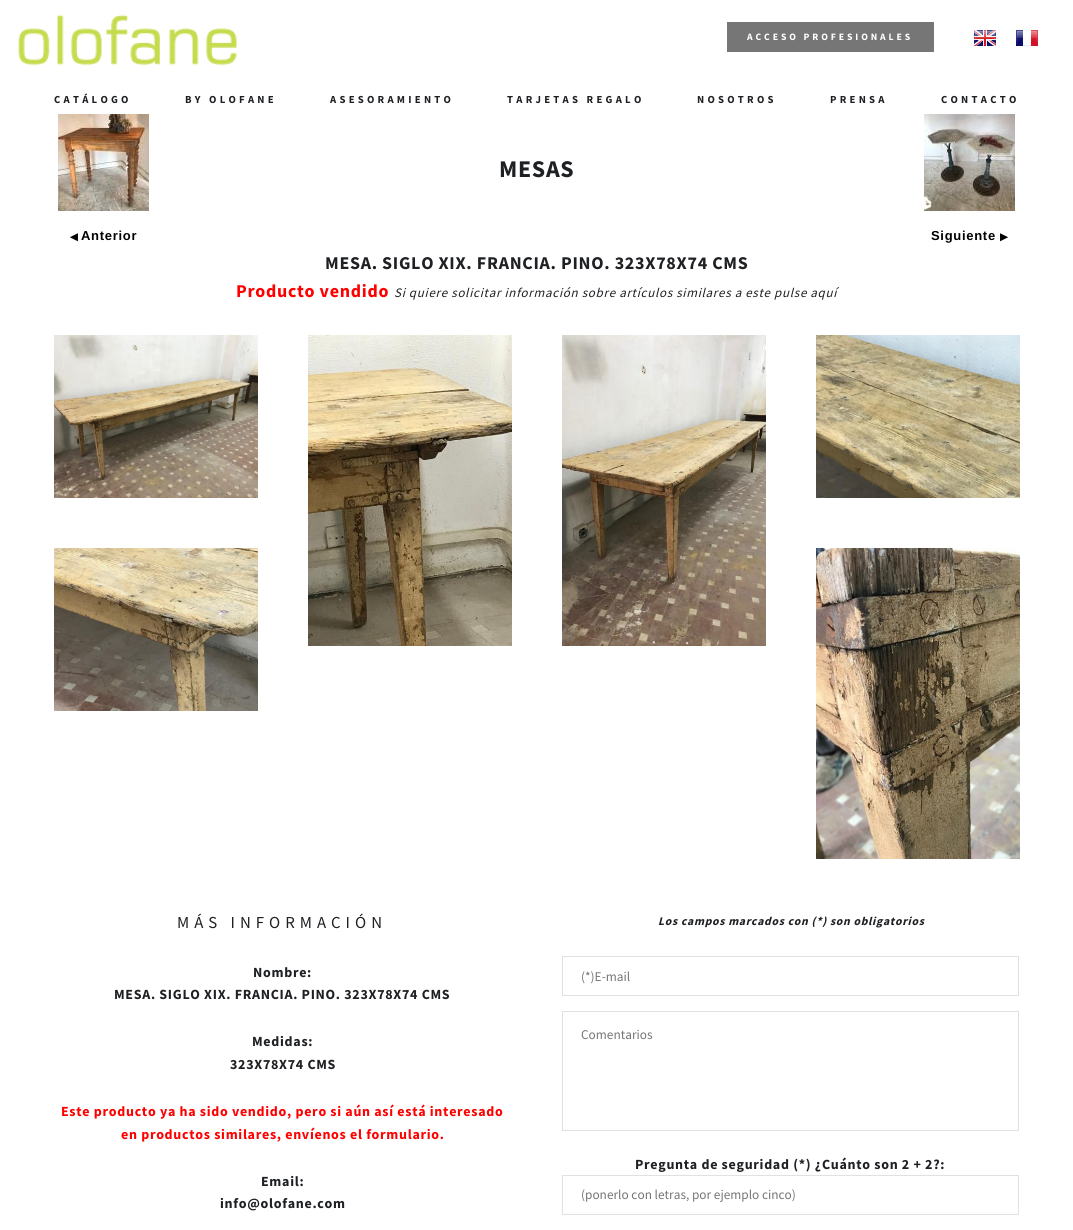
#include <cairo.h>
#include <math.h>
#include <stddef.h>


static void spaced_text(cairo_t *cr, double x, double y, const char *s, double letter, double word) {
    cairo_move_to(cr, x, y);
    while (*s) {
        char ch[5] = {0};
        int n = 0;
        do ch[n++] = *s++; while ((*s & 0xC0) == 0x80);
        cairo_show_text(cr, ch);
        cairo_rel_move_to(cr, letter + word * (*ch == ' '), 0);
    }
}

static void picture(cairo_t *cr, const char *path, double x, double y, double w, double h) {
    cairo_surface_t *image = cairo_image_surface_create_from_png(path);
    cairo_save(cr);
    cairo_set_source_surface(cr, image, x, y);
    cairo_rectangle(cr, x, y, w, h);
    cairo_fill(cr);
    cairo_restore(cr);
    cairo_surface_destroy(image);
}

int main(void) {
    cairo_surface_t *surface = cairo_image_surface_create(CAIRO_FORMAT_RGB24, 1073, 1230);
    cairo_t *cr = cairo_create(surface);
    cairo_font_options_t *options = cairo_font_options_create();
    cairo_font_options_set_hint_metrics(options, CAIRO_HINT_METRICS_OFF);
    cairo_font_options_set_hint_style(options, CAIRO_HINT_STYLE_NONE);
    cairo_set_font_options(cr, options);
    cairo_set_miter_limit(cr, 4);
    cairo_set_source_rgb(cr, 1, 1, 1);
    cairo_paint(cr);
    picture(cr, "img1.png", 18, 14, 219, 52);
    cairo_set_source_rgb(cr, 0.463, 0.463, 0.463);
    cairo_rectangle(cr, 727, 22, 207, 30);
    cairo_fill(cr);
    cairo_select_font_face(cr, "Source Sans Pro", CAIRO_FONT_SLANT_NORMAL, CAIRO_FONT_WEIGHT_BOLD);
    cairo_set_font_size(cr, 9.75);
    cairo_set_source_rgb(cr, 1, 1, 1);
    spaced_text(cr, 747, 40, "ACCESO PROFESIONALES", 2.9, 0);
    picture(cr, "img2.png", 974, 30, 22, 16);
    picture(cr, "img3.png", 1016, 30, 22, 16);
    cairo_set_font_size(cr, 10.75);
    cairo_set_source_rgb(cr, 0.118, 0.125, 0.137);
    spaced_text(cr, 54, 103, "CATÁLOGO", 3.25, 0);
    spaced_text(cr, 185, 103, "BY OLOFANE", 3.25, 0);
    spaced_text(cr, 330, 103, "ASESORAMIENTO", 3.25, 0);
    spaced_text(cr, 507, 103, "TARJETAS REGALO", 3.25, 0);
    spaced_text(cr, 697, 103, "NOSOTROS", 3.25, 0);
    spaced_text(cr, 830, 103, "PRENSA", 3.25, 0);
    spaced_text(cr, 941, 103, "CONTACTO", 3.25, 0);
    cairo_set_font_size(cr, 24);
    spaced_text(cr, 499, 177, "MESAS", 0.7, 0);
    picture(cr, "img4.png", 58, 114, 91, 97);
    cairo_select_font_face(cr, "DejaVu Sans", CAIRO_FONT_SLANT_NORMAL, CAIRO_FONT_WEIGHT_BOLD);
    cairo_set_font_size(cr, 10);
    cairo_set_source_rgb(cr, 0, 0, 0);
    spaced_text(cr, 70, 240, "◀", 0.7, 0);
    cairo_select_font_face(cr, "Liberation Sans", CAIRO_FONT_SLANT_NORMAL, CAIRO_FONT_WEIGHT_BOLD);
    cairo_set_font_size(cr, 13);
    spaced_text(cr, 81, 240, "Anterior", 0.7, 0);
    picture(cr, "img5.png", 924, 114, 91, 97);
    spaced_text(cr, 931, 240, "Siguiente", 0.7, 0);
    cairo_select_font_face(cr, "DejaVu Sans", CAIRO_FONT_SLANT_NORMAL, CAIRO_FONT_WEIGHT_BOLD);
    cairo_set_font_size(cr, 10);
    spaced_text(cr, 1000, 240, "▶", 0.7, 0);
    cairo_select_font_face(cr, "Source Sans Pro", CAIRO_FONT_SLANT_NORMAL, CAIRO_FONT_WEIGHT_BOLD);
    cairo_set_font_size(cr, 18);
    cairo_set_source_rgb(cr, 0.118, 0.125, 0.137);
    spaced_text(cr, 325, 269, "MESA. SIGLO XIX. FRANCIA. PINO. 323X78X74 CMS", 0.7, 0);
    cairo_set_source_rgb(cr, 1, 0, 0);
    spaced_text(cr, 236, 297, "Producto vendido", 0.7, 0);
    cairo_select_font_face(cr, "Source Sans Pro", CAIRO_FONT_SLANT_ITALIC, CAIRO_FONT_WEIGHT_NORMAL);
    cairo_set_font_size(cr, 13);
    cairo_set_source_rgb(cr, 0.118, 0.125, 0.137);
    spaced_text(cr, 394, 297, "Si quiere solicitar información sobre artículos similares a este pulse aquí", 0.7, 0);
    picture(cr, "img6.png", 54, 335, 204, 163);
    picture(cr, "img7.png", 308, 335, 204, 311);
    picture(cr, "img8.png", 562, 335, 204, 311);
    picture(cr, "img9.png", 816, 335, 204, 163);
    picture(cr, "img10.png", 54, 548, 204, 163);
    picture(cr, "img11.png", 816, 548, 204, 311);
    cairo_select_font_face(cr, "Source Sans Pro", CAIRO_FONT_SLANT_NORMAL, CAIRO_FONT_WEIGHT_NORMAL);
    cairo_set_font_size(cr, 16.75);
    spaced_text(cr, 177, 928, "MÁS INFORMACIÓN", 5, 0);
    cairo_select_font_face(cr, "Source Sans Pro", CAIRO_FONT_SLANT_NORMAL, CAIRO_FONT_WEIGHT_BOLD);
    cairo_set_font_size(cr, 14);
    spaced_text(cr, 253, 977, "Nombre:", 0.7, 0);
    spaced_text(cr, 114, 999, "MESA. SIGLO XIX. FRANCIA. PINO. 323X78X74 CMS", 0.7, 0);
    spaced_text(cr, 252, 1046, "Medidas:", 0.7, 0);
    spaced_text(cr, 230, 1069, "323X78X74 CMS", 0.7, 0);
    cairo_set_source_rgb(cr, 1, 0, 0);
    spaced_text(cr, 61, 1116, "Este producto ya ha sido vendido, pero si aún así está interesado", 0.7, 0);
    spaced_text(cr, 121, 1139, "en productos similares, envíenos el formulario.", 0.7, 0);
    cairo_set_source_rgb(cr, 0.118, 0.125, 0.137);
    spaced_text(cr, 261, 1186, "Email:", 0.7, 0);
    spaced_text(cr, 220, 1208, "info@olofane.com", 0.7, 0);
    cairo_select_font_face(cr, "Source Sans Pro", CAIRO_FONT_SLANT_ITALIC, CAIRO_FONT_WEIGHT_BOLD);
    cairo_set_font_size(cr, 11.7);
    spaced_text(cr, 658, 925, "Los campos marcados con (*) son obligatorios", 0.7, 0);
    cairo_rectangle(cr, 562.5, 956.5, 456, 39);
    cairo_set_source_rgb(cr, 0.882, 0.882, 0.882);
    cairo_set_line_width(cr, 1);
    cairo_stroke(cr);
    cairo_select_font_face(cr, "Source Sans Pro", CAIRO_FONT_SLANT_NORMAL, CAIRO_FONT_WEIGHT_NORMAL);
    cairo_set_font_size(cr, 13.3);
    cairo_set_source_rgb(cr, 0.459, 0.459, 0.459);
    cairo_move_to(cr, 581, 981);
    cairo_show_text(cr, "(*)E-mail");
    cairo_rectangle(cr, 562.5, 1011.5, 456, 119);
    cairo_set_source_rgb(cr, 0.882, 0.882, 0.882);
    cairo_stroke(cr);
    cairo_set_source_rgb(cr, 0.459, 0.459, 0.459);
    cairo_move_to(cr, 581, 1039);
    cairo_show_text(cr, "Comentarios");
    cairo_select_font_face(cr, "Source Sans Pro", CAIRO_FONT_SLANT_NORMAL, CAIRO_FONT_WEIGHT_BOLD);
    cairo_set_font_size(cr, 14);
    cairo_set_source_rgb(cr, 0.118, 0.125, 0.137);
    spaced_text(cr, 635, 1169, "Pregunta de seguridad (*) ¿Cuánto son 2 + 2?:", 0.7, 0);
    cairo_rectangle(cr, 562.5, 1175.5, 456, 39);
    cairo_set_source_rgb(cr, 0.882, 0.882, 0.882);
    cairo_stroke(cr);
    cairo_select_font_face(cr, "Source Sans Pro", CAIRO_FONT_SLANT_NORMAL, CAIRO_FONT_WEIGHT_NORMAL);
    cairo_set_font_size(cr, 13.3);
    cairo_set_source_rgb(cr, 0.459, 0.459, 0.459);
    cairo_move_to(cr, 581, 1199);
    cairo_show_text(cr, "(ponerlo con letras, por ejemplo cinco)");
    cairo_surface_write_to_png(surface, "page.png");
    cairo_font_options_destroy(options);
    cairo_destroy(cr);
    cairo_surface_destroy(surface);
    return 0;
}
